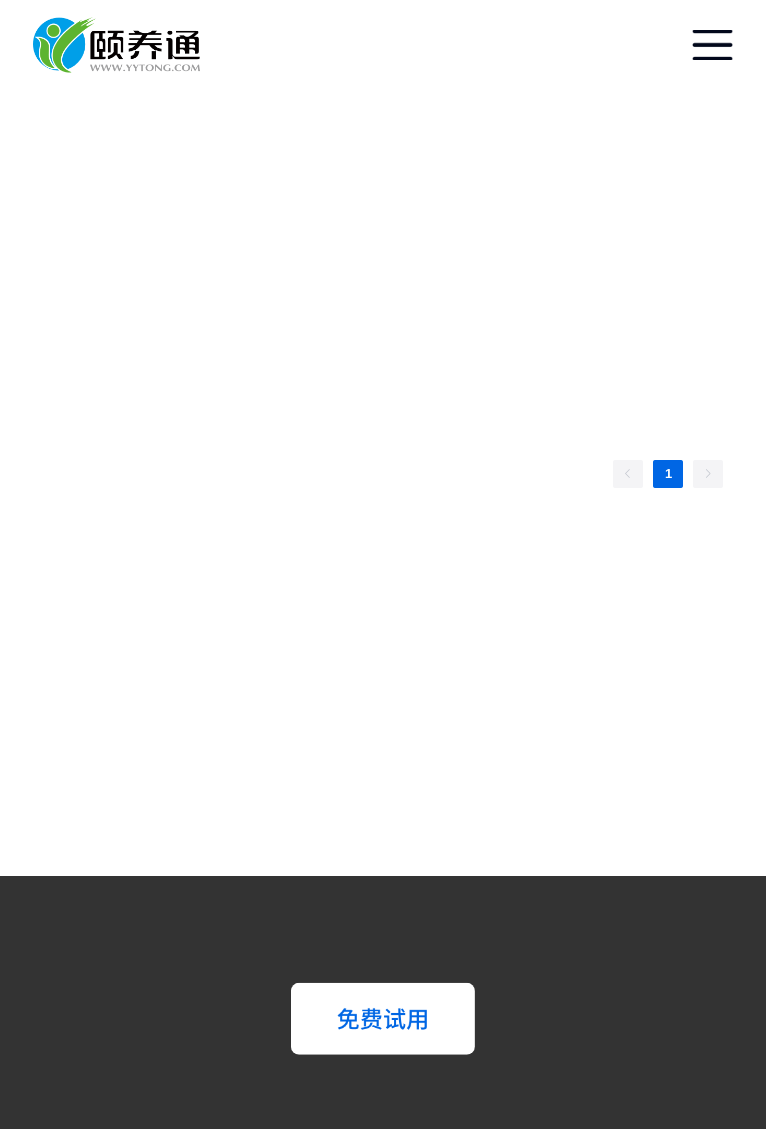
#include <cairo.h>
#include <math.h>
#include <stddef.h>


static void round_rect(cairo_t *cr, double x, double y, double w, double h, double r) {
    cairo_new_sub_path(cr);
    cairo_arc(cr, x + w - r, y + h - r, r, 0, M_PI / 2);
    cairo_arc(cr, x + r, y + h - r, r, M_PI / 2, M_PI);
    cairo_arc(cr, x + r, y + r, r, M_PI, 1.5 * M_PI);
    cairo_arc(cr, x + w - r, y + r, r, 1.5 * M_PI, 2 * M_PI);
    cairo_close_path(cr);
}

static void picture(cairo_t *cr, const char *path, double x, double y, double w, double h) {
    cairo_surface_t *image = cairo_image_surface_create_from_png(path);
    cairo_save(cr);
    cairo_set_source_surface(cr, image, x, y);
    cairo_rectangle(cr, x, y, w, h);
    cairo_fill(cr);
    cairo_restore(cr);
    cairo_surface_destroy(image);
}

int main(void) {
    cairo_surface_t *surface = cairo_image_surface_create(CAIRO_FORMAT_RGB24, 766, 1129);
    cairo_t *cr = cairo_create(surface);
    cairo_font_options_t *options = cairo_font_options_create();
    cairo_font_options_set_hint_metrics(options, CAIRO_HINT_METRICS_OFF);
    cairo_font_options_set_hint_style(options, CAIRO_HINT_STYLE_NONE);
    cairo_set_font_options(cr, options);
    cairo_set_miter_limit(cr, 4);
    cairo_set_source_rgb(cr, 1, 1, 1);
    cairo_paint(cr);
    picture(cr, "img1.png", 33, 17, 167, 56);
    picture(cr, "img2.png", 692, 30, 41, 30);
    cairo_set_source_rgb(cr, 0.957, 0.957, 0.961);
    round_rect(cr, 613, 460, 30, 28, 2);
    cairo_fill(cr);
    picture(cr, "img3.png", 625, 469, 5, 9);
    cairo_set_source_rgb(cr, 0, 0.4, 0.894);
    round_rect(cr, 653, 460, 30, 28, 2);
    cairo_fill(cr);
    cairo_select_font_face(cr, "Liberation Sans", CAIRO_FONT_SLANT_NORMAL, CAIRO_FONT_WEIGHT_BOLD);
    cairo_set_font_size(cr, 13);
    cairo_set_source_rgb(cr, 1, 1, 1);
    cairo_move_to(cr, 665, 478);
    cairo_show_text(cr, "1");
    cairo_set_source_rgb(cr, 0.957, 0.957, 0.961);
    round_rect(cr, 693, 460, 30, 28, 2);
    cairo_fill(cr);
    picture(cr, "img4.png", 706, 469, 5, 9);
    cairo_set_source_rgb(cr, 0.2, 0.2, 0.2);
    cairo_rectangle(cr, 0, 876, 766, 253);
    cairo_fill(cr);
    picture(cr, "img5.png", 291, 982, 184, 73);
    cairo_surface_write_to_png(surface, "page.png");
    cairo_font_options_destroy(options);
    cairo_destroy(cr);
    cairo_surface_destroy(surface);
    return 0;
}
